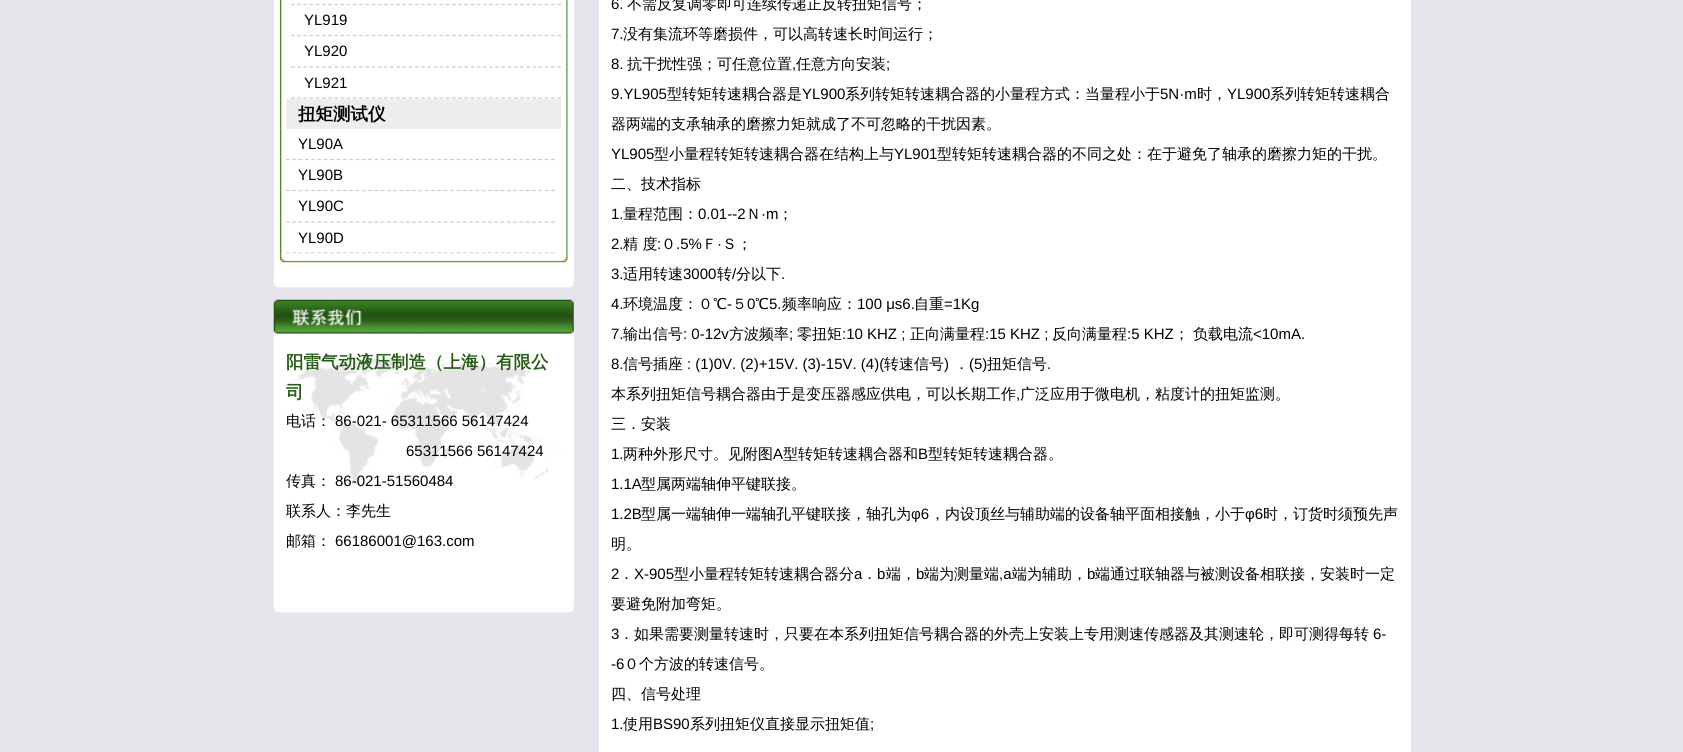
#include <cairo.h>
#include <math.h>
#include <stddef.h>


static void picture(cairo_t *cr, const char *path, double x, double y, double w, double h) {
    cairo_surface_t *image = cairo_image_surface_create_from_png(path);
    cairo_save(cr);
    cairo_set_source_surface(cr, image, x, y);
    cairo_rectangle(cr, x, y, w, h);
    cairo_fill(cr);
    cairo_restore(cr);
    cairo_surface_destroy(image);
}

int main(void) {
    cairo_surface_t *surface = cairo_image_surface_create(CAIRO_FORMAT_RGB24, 1683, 752);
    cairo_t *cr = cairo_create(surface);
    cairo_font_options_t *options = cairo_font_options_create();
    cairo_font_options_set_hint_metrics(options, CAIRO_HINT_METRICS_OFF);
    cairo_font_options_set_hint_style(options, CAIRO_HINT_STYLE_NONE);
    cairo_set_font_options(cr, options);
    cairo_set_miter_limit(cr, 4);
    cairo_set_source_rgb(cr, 0.906, 0.898, 0.918);
    cairo_paint(cr);
    cairo_set_source_rgb(cr, 1, 1, 1);
    cairo_rectangle(cr, 274, 0, 300, 275);
    cairo_fill(cr);
    picture(cr, "img1.png", 280, 0, 288, 254);
    cairo_new_path(cr);
    cairo_move_to(cr, 291, 4.5);
    cairo_line_to(cr, 561, 4.5);
    cairo_set_source_rgb(cr, 0.8, 0.8, 0.8);
    cairo_set_line_width(cr, 1.2);
    cairo_set_dash(cr, (double[]){3.75, 2.44}, 2, 0);
    cairo_stroke(cr);
    cairo_new_path(cr);
    cairo_move_to(cr, 291, 35.5);
    cairo_line_to(cr, 561, 35.5);
    cairo_stroke(cr);
    cairo_select_font_face(cr, "Liberation Sans", CAIRO_FONT_SLANT_NORMAL, CAIRO_FONT_WEIGHT_NORMAL);
    cairo_set_font_size(cr, 15);
    cairo_set_source_rgb(cr, 0, 0, 0);
    cairo_move_to(cr, 304, 25);
    cairo_show_text(cr, "YL919");
    cairo_new_path(cr);
    cairo_move_to(cr, 291, 67);
    cairo_line_to(cr, 561, 67);
    cairo_set_source_rgb(cr, 0.8, 0.8, 0.8);
    cairo_stroke(cr);
    cairo_set_source_rgb(cr, 0, 0, 0);
    cairo_move_to(cr, 304, 56);
    cairo_show_text(cr, "YL920");
    cairo_new_path(cr);
    cairo_move_to(cr, 291, 98);
    cairo_line_to(cr, 561, 98);
    cairo_set_source_rgb(cr, 0.8, 0.8, 0.8);
    cairo_stroke(cr);
    cairo_set_source_rgb(cr, 0, 0, 0);
    cairo_move_to(cr, 304, 88);
    cairo_show_text(cr, "YL921");
    cairo_set_source_rgb(cr, 0.929, 0.929, 0.929);
    cairo_rectangle(cr, 286, 99, 275, 30);
    cairo_fill(cr);
    cairo_select_font_face(cr, "WenQuanYi Zen Hei", CAIRO_FONT_SLANT_NORMAL, CAIRO_FONT_WEIGHT_BOLD);
    cairo_set_font_size(cr, 17.5);
    cairo_set_source_rgb(cr, 0, 0, 0);
    cairo_move_to(cr, 298, 120);
    cairo_show_text(cr, "扭矩测试仪");
    cairo_new_path(cr);
    cairo_move_to(cr, 286, 159.5);
    cairo_line_to(cr, 555, 159.5);
    cairo_set_source_rgb(cr, 0.8, 0.8, 0.8);
    cairo_set_dash(cr, (double[]){3.75, 2.56}, 2, 0);
    cairo_stroke(cr);
    cairo_select_font_face(cr, "Liberation Sans", CAIRO_FONT_SLANT_NORMAL, CAIRO_FONT_WEIGHT_NORMAL);
    cairo_set_font_size(cr, 15);
    cairo_set_source_rgb(cr, 0, 0, 0);
    cairo_move_to(cr, 298, 149);
    cairo_show_text(cr, "YL90A");
    cairo_new_path(cr);
    cairo_move_to(cr, 286, 190.5);
    cairo_line_to(cr, 555, 190.5);
    cairo_set_source_rgb(cr, 0.8, 0.8, 0.8);
    cairo_stroke(cr);
    cairo_set_source_rgb(cr, 0, 0, 0);
    cairo_move_to(cr, 298, 180);
    cairo_show_text(cr, "YL90B");
    cairo_new_path(cr);
    cairo_move_to(cr, 286, 222);
    cairo_line_to(cr, 555, 222);
    cairo_set_source_rgb(cr, 0.8, 0.8, 0.8);
    cairo_stroke(cr);
    cairo_set_source_rgb(cr, 0, 0, 0);
    cairo_move_to(cr, 298, 211);
    cairo_show_text(cr, "YL90C");
    cairo_new_path(cr);
    cairo_move_to(cr, 286, 253);
    cairo_line_to(cr, 555, 253);
    cairo_set_source_rgb(cr, 0.8, 0.8, 0.8);
    cairo_stroke(cr);
    cairo_set_source_rgb(cr, 0, 0, 0);
    cairo_move_to(cr, 298, 243);
    cairo_show_text(cr, "YL90D");
    picture(cr, "img2.png", 280, 253, 288, 10);
    picture(cr, "img3.png", 273, 275, 301, 13);
    cairo_set_source_rgb(cr, 1, 1, 1);
    cairo_rectangle(cr, 274, 334, 300, 266);
    cairo_fill(cr);
    picture(cr, "img5.png", 273, 333, 301, 267);
    picture(cr, "img4.png", 273, 299, 301, 35);
    cairo_select_font_face(cr, "WenQuanYi Zen Hei", CAIRO_FONT_SLANT_NORMAL, CAIRO_FONT_WEIGHT_BOLD);
    cairo_set_font_size(cr, 17.5);
    cairo_set_source_rgb(cr, 0.157, 0.361, 0.094);
    cairo_move_to(cr, 286, 368);
    cairo_show_text(cr, "阳雷气动液压制造（上海）有限公");
    cairo_move_to(cr, 286, 398);
    cairo_show_text(cr, "司");
    cairo_select_font_face(cr, "WenQuanYi Zen Hei Medium", CAIRO_FONT_SLANT_NORMAL, CAIRO_FONT_WEIGHT_NORMAL);
    cairo_set_font_size(cr, 15);
    cairo_set_source_rgb(cr, 0, 0, 0);
    cairo_move_to(cr, 286, 426);
    cairo_show_text(cr, "电话：");
    cairo_select_font_face(cr, "Liberation Sans", CAIRO_FONT_SLANT_NORMAL, CAIRO_FONT_WEIGHT_NORMAL);
    cairo_move_to(cr, 335, 426);
    cairo_show_text(cr, "86-021- 65311566 56147424");
    cairo_move_to(cr, 406, 456);
    cairo_show_text(cr, "65311566 56147424");
    cairo_select_font_face(cr, "WenQuanYi Zen Hei Medium", CAIRO_FONT_SLANT_NORMAL, CAIRO_FONT_WEIGHT_NORMAL);
    cairo_move_to(cr, 286, 486);
    cairo_show_text(cr, "传真：");
    cairo_select_font_face(cr, "Liberation Sans", CAIRO_FONT_SLANT_NORMAL, CAIRO_FONT_WEIGHT_NORMAL);
    cairo_move_to(cr, 335, 486);
    cairo_show_text(cr, "86-021-51560484");
    cairo_select_font_face(cr, "WenQuanYi Zen Hei Medium", CAIRO_FONT_SLANT_NORMAL, CAIRO_FONT_WEIGHT_NORMAL);
    cairo_move_to(cr, 286, 516);
    cairo_show_text(cr, "联系人：李先生");
    cairo_move_to(cr, 286, 546);
    cairo_show_text(cr, "邮箱：");
    cairo_select_font_face(cr, "Liberation Sans", CAIRO_FONT_SLANT_NORMAL, CAIRO_FONT_WEIGHT_NORMAL);
    cairo_move_to(cr, 335, 546);
    cairo_show_text(cr, "66186001@163.com");
    picture(cr, "img3.png", 273, 600, 301, 13);
    cairo_set_source_rgb(cr, 1, 1, 1);
    cairo_rectangle(cr, 599, 0, 812, 752);
    cairo_fill(cr);
    cairo_set_source_rgb(cr, 0, 0, 0);
    cairo_move_to(cr, 611, 9);
    cairo_show_text(cr, "6.");
    cairo_select_font_face(cr, "WenQuanYi Zen Hei Medium", CAIRO_FONT_SLANT_NORMAL, CAIRO_FONT_WEIGHT_NORMAL);
    cairo_move_to(cr, 627, 9);
    cairo_show_text(cr, "不需反复调零即可连续传递正反转扭矩信号；");
    cairo_select_font_face(cr, "Liberation Sans", CAIRO_FONT_SLANT_NORMAL, CAIRO_FONT_WEIGHT_NORMAL);
    cairo_move_to(cr, 611, 39);
    cairo_show_text(cr, "7.");
    cairo_select_font_face(cr, "WenQuanYi Zen Hei Medium", CAIRO_FONT_SLANT_NORMAL, CAIRO_FONT_WEIGHT_NORMAL);
    cairo_move_to(cr, 623, 39);
    cairo_show_text(cr, "没有集流环等磨损件，可以高转速长时间运行；");
    cairo_select_font_face(cr, "Liberation Sans", CAIRO_FONT_SLANT_NORMAL, CAIRO_FONT_WEIGHT_NORMAL);
    cairo_move_to(cr, 611, 69);
    cairo_show_text(cr, "8.");
    cairo_select_font_face(cr, "WenQuanYi Zen Hei Medium", CAIRO_FONT_SLANT_NORMAL, CAIRO_FONT_WEIGHT_NORMAL);
    cairo_move_to(cr, 627, 69);
    cairo_show_text(cr, "抗干扰性强；可任意位置");
    cairo_select_font_face(cr, "Liberation Sans", CAIRO_FONT_SLANT_NORMAL, CAIRO_FONT_WEIGHT_NORMAL);
    cairo_move_to(cr, 792, 69);
    cairo_show_text(cr, ",");
    cairo_select_font_face(cr, "WenQuanYi Zen Hei Medium", CAIRO_FONT_SLANT_NORMAL, CAIRO_FONT_WEIGHT_NORMAL);
    cairo_move_to(cr, 796, 69);
    cairo_show_text(cr, "任意方向安装");
    cairo_select_font_face(cr, "Liberation Sans", CAIRO_FONT_SLANT_NORMAL, CAIRO_FONT_WEIGHT_NORMAL);
    cairo_move_to(cr, 886, 69);
    cairo_show_text(cr, ";");
    cairo_move_to(cr, 611, 99);
    cairo_show_text(cr, "9.YL905");
    cairo_select_font_face(cr, "WenQuanYi Zen Hei Medium", CAIRO_FONT_SLANT_NORMAL, CAIRO_FONT_WEIGHT_NORMAL);
    cairo_move_to(cr, 667, 99);
    cairo_show_text(cr, "型转矩转速耦合器是");
    cairo_select_font_face(cr, "Liberation Sans", CAIRO_FONT_SLANT_NORMAL, CAIRO_FONT_WEIGHT_NORMAL);
    cairo_move_to(cr, 802, 99);
    cairo_show_text(cr, "YL900");
    cairo_select_font_face(cr, "WenQuanYi Zen Hei Medium", CAIRO_FONT_SLANT_NORMAL, CAIRO_FONT_WEIGHT_NORMAL);
    cairo_move_to(cr, 845, 99);
    cairo_show_text(cr, "系列转矩转速耦合器的小量程方式：当量程小于");
    cairo_select_font_face(cr, "Liberation Sans", CAIRO_FONT_SLANT_NORMAL, CAIRO_FONT_WEIGHT_NORMAL);
    cairo_move_to(cr, 1160, 99);
    cairo_show_text(cr, "5N·m");
    cairo_select_font_face(cr, "WenQuanYi Zen Hei Medium", CAIRO_FONT_SLANT_NORMAL, CAIRO_FONT_WEIGHT_NORMAL);
    cairo_move_to(cr, 1197, 99);
    cairo_show_text(cr, "时，");
    cairo_select_font_face(cr, "Liberation Sans", CAIRO_FONT_SLANT_NORMAL, CAIRO_FONT_WEIGHT_NORMAL);
    cairo_move_to(cr, 1227, 99);
    cairo_show_text(cr, "YL900");
    cairo_select_font_face(cr, "WenQuanYi Zen Hei Medium", CAIRO_FONT_SLANT_NORMAL, CAIRO_FONT_WEIGHT_NORMAL);
    cairo_move_to(cr, 1270, 99);
    cairo_show_text(cr, "系列转矩转速耦合");
    cairo_move_to(cr, 611, 129);
    cairo_show_text(cr, "器两端的支承轴承的磨擦力矩就成了不可忽略的干扰因素。");
    cairo_select_font_face(cr, "Liberation Sans", CAIRO_FONT_SLANT_NORMAL, CAIRO_FONT_WEIGHT_NORMAL);
    cairo_move_to(cr, 611, 159);
    cairo_show_text(cr, "YL905");
    cairo_select_font_face(cr, "WenQuanYi Zen Hei Medium", CAIRO_FONT_SLANT_NORMAL, CAIRO_FONT_WEIGHT_NORMAL);
    cairo_move_to(cr, 654, 159);
    cairo_show_text(cr, "型小量程转矩转速耦合器在结构上与");
    cairo_select_font_face(cr, "Liberation Sans", CAIRO_FONT_SLANT_NORMAL, CAIRO_FONT_WEIGHT_NORMAL);
    cairo_move_to(cr, 894, 159);
    cairo_show_text(cr, "YL901");
    cairo_select_font_face(cr, "WenQuanYi Zen Hei Medium", CAIRO_FONT_SLANT_NORMAL, CAIRO_FONT_WEIGHT_NORMAL);
    cairo_move_to(cr, 937, 159);
    cairo_show_text(cr, "型转矩转速耦合器的不同之处：在于避免了轴承的磨擦力矩的干扰。");
    cairo_move_to(cr, 611, 189);
    cairo_show_text(cr, "二、技术指标");
    cairo_select_font_face(cr, "Liberation Sans", CAIRO_FONT_SLANT_NORMAL, CAIRO_FONT_WEIGHT_NORMAL);
    cairo_move_to(cr, 611, 219);
    cairo_show_text(cr, "1.");
    cairo_select_font_face(cr, "WenQuanYi Zen Hei Medium", CAIRO_FONT_SLANT_NORMAL, CAIRO_FONT_WEIGHT_NORMAL);
    cairo_move_to(cr, 623, 219);
    cairo_show_text(cr, "量程范围：");
    cairo_select_font_face(cr, "Liberation Sans", CAIRO_FONT_SLANT_NORMAL, CAIRO_FONT_WEIGHT_NORMAL);
    cairo_move_to(cr, 698, 219);
    cairo_show_text(cr, "0.01--2");
    cairo_select_font_face(cr, "WenQuanYi Zen Hei Medium", CAIRO_FONT_SLANT_NORMAL, CAIRO_FONT_WEIGHT_NORMAL);
    cairo_move_to(cr, 746, 219);
    cairo_show_text(cr, "Ｎ");
    cairo_select_font_face(cr, "Liberation Sans", CAIRO_FONT_SLANT_NORMAL, CAIRO_FONT_WEIGHT_NORMAL);
    cairo_move_to(cr, 761, 219);
    cairo_show_text(cr, "·m");
    cairo_select_font_face(cr, "WenQuanYi Zen Hei Medium", CAIRO_FONT_SLANT_NORMAL, CAIRO_FONT_WEIGHT_NORMAL);
    cairo_move_to(cr, 778, 219);
    cairo_show_text(cr, "；");
    cairo_select_font_face(cr, "Liberation Sans", CAIRO_FONT_SLANT_NORMAL, CAIRO_FONT_WEIGHT_NORMAL);
    cairo_move_to(cr, 611, 249);
    cairo_show_text(cr, "2.");
    cairo_select_font_face(cr, "WenQuanYi Zen Hei Medium", CAIRO_FONT_SLANT_NORMAL, CAIRO_FONT_WEIGHT_NORMAL);
    cairo_move_to(cr, 623, 249);
    cairo_show_text(cr, "精 度");
    cairo_select_font_face(cr, "Liberation Sans", CAIRO_FONT_SLANT_NORMAL, CAIRO_FONT_WEIGHT_NORMAL);
    cairo_move_to(cr, 657, 249);
    cairo_show_text(cr, ":");
    cairo_select_font_face(cr, "WenQuanYi Zen Hei Medium", CAIRO_FONT_SLANT_NORMAL, CAIRO_FONT_WEIGHT_NORMAL);
    cairo_move_to(cr, 661, 249);
    cairo_show_text(cr, "０");
    cairo_select_font_face(cr, "Liberation Sans", CAIRO_FONT_SLANT_NORMAL, CAIRO_FONT_WEIGHT_NORMAL);
    cairo_move_to(cr, 676, 249);
    cairo_show_text(cr, ".5%");
    cairo_select_font_face(cr, "WenQuanYi Zen Hei Medium", CAIRO_FONT_SLANT_NORMAL, CAIRO_FONT_WEIGHT_NORMAL);
    cairo_move_to(cr, 702, 249);
    cairo_show_text(cr, "Ｆ");
    cairo_select_font_face(cr, "Liberation Sans", CAIRO_FONT_SLANT_NORMAL, CAIRO_FONT_WEIGHT_NORMAL);
    cairo_move_to(cr, 717, 249);
    cairo_show_text(cr, "·");
    cairo_select_font_face(cr, "WenQuanYi Zen Hei Medium", CAIRO_FONT_SLANT_NORMAL, CAIRO_FONT_WEIGHT_NORMAL);
    cairo_move_to(cr, 722, 249);
    cairo_show_text(cr, "Ｓ；");
    cairo_select_font_face(cr, "Liberation Sans", CAIRO_FONT_SLANT_NORMAL, CAIRO_FONT_WEIGHT_NORMAL);
    cairo_move_to(cr, 611, 279);
    cairo_show_text(cr, "3.");
    cairo_select_font_face(cr, "WenQuanYi Zen Hei Medium", CAIRO_FONT_SLANT_NORMAL, CAIRO_FONT_WEIGHT_NORMAL);
    cairo_move_to(cr, 623, 279);
    cairo_show_text(cr, "适用转速");
    cairo_select_font_face(cr, "Liberation Sans", CAIRO_FONT_SLANT_NORMAL, CAIRO_FONT_WEIGHT_NORMAL);
    cairo_move_to(cr, 683, 279);
    cairo_show_text(cr, "3000");
    cairo_select_font_face(cr, "WenQuanYi Zen Hei Medium", CAIRO_FONT_SLANT_NORMAL, CAIRO_FONT_WEIGHT_NORMAL);
    cairo_move_to(cr, 717, 279);
    cairo_show_text(cr, "转");
    cairo_select_font_face(cr, "Liberation Sans", CAIRO_FONT_SLANT_NORMAL, CAIRO_FONT_WEIGHT_NORMAL);
    cairo_move_to(cr, 732, 279);
    cairo_show_text(cr, "/");
    cairo_select_font_face(cr, "WenQuanYi Zen Hei Medium", CAIRO_FONT_SLANT_NORMAL, CAIRO_FONT_WEIGHT_NORMAL);
    cairo_move_to(cr, 736, 279);
    cairo_show_text(cr, "分以下");
    cairo_select_font_face(cr, "Liberation Sans", CAIRO_FONT_SLANT_NORMAL, CAIRO_FONT_WEIGHT_NORMAL);
    cairo_move_to(cr, 781, 279);
    cairo_show_text(cr, ".");
    cairo_move_to(cr, 611, 309);
    cairo_show_text(cr, "4.");
    cairo_select_font_face(cr, "WenQuanYi Zen Hei Medium", CAIRO_FONT_SLANT_NORMAL, CAIRO_FONT_WEIGHT_NORMAL);
    cairo_move_to(cr, 623, 309);
    cairo_show_text(cr, "环境温度：０℃");
    cairo_select_font_face(cr, "Liberation Sans", CAIRO_FONT_SLANT_NORMAL, CAIRO_FONT_WEIGHT_NORMAL);
    cairo_move_to(cr, 727, 309);
    cairo_show_text(cr, "-");
    cairo_select_font_face(cr, "WenQuanYi Zen Hei Medium", CAIRO_FONT_SLANT_NORMAL, CAIRO_FONT_WEIGHT_NORMAL);
    cairo_move_to(cr, 732, 309);
    cairo_show_text(cr, "５");
    cairo_select_font_face(cr, "Liberation Sans", CAIRO_FONT_SLANT_NORMAL, CAIRO_FONT_WEIGHT_NORMAL);
    cairo_move_to(cr, 747, 309);
    cairo_show_text(cr, "0");
    cairo_select_font_face(cr, "WenQuanYi Zen Hei Medium", CAIRO_FONT_SLANT_NORMAL, CAIRO_FONT_WEIGHT_NORMAL);
    cairo_move_to(cr, 755, 309);
    cairo_show_text(cr, "℃");
    cairo_select_font_face(cr, "Liberation Sans", CAIRO_FONT_SLANT_NORMAL, CAIRO_FONT_WEIGHT_NORMAL);
    cairo_move_to(cr, 769, 309);
    cairo_show_text(cr, "5.");
    cairo_select_font_face(cr, "WenQuanYi Zen Hei Medium", CAIRO_FONT_SLANT_NORMAL, CAIRO_FONT_WEIGHT_NORMAL);
    cairo_move_to(cr, 782, 309);
    cairo_show_text(cr, "频率响应：");
    cairo_select_font_face(cr, "Liberation Sans", CAIRO_FONT_SLANT_NORMAL, CAIRO_FONT_WEIGHT_NORMAL);
    cairo_move_to(cr, 857, 309);
    cairo_show_text(cr, "100 μs6.");
    cairo_select_font_face(cr, "WenQuanYi Zen Hei Medium", CAIRO_FONT_SLANT_NORMAL, CAIRO_FONT_WEIGHT_NORMAL);
    cairo_move_to(cr, 914, 309);
    cairo_show_text(cr, "自重");
    cairo_select_font_face(cr, "Liberation Sans", CAIRO_FONT_SLANT_NORMAL, CAIRO_FONT_WEIGHT_NORMAL);
    cairo_move_to(cr, 944, 309);
    cairo_show_text(cr, "=1Kg");
    cairo_move_to(cr, 611, 339);
    cairo_show_text(cr, "7.");
    cairo_select_font_face(cr, "WenQuanYi Zen Hei Medium", CAIRO_FONT_SLANT_NORMAL, CAIRO_FONT_WEIGHT_NORMAL);
    cairo_move_to(cr, 623, 339);
    cairo_show_text(cr, "输出信号");
    cairo_select_font_face(cr, "Liberation Sans", CAIRO_FONT_SLANT_NORMAL, CAIRO_FONT_WEIGHT_NORMAL);
    cairo_move_to(cr, 683, 339);
    cairo_show_text(cr, ": 0-12v");
    cairo_select_font_face(cr, "WenQuanYi Zen Hei Medium", CAIRO_FONT_SLANT_NORMAL, CAIRO_FONT_WEIGHT_NORMAL);
    cairo_move_to(cr, 729, 339);
    cairo_show_text(cr, "方波频率");
    cairo_select_font_face(cr, "Liberation Sans", CAIRO_FONT_SLANT_NORMAL, CAIRO_FONT_WEIGHT_NORMAL);
    cairo_move_to(cr, 789, 339);
    cairo_show_text(cr, ";");
    cairo_select_font_face(cr, "WenQuanYi Zen Hei Medium", CAIRO_FONT_SLANT_NORMAL, CAIRO_FONT_WEIGHT_NORMAL);
    cairo_move_to(cr, 797, 339);
    cairo_show_text(cr, "零扭矩");
    cairo_select_font_face(cr, "Liberation Sans", CAIRO_FONT_SLANT_NORMAL, CAIRO_FONT_WEIGHT_NORMAL);
    cairo_move_to(cr, 842, 339);
    cairo_show_text(cr, ":10 KHZ ;");
    cairo_select_font_face(cr, "WenQuanYi Zen Hei Medium", CAIRO_FONT_SLANT_NORMAL, CAIRO_FONT_WEIGHT_NORMAL);
    cairo_move_to(cr, 910, 339);
    cairo_show_text(cr, "正向满量程");
    cairo_select_font_face(cr, "Liberation Sans", CAIRO_FONT_SLANT_NORMAL, CAIRO_FONT_WEIGHT_NORMAL);
    cairo_move_to(cr, 985, 339);
    cairo_show_text(cr, ":15 KHZ ;");
    cairo_select_font_face(cr, "WenQuanYi Zen Hei Medium", CAIRO_FONT_SLANT_NORMAL, CAIRO_FONT_WEIGHT_NORMAL);
    cairo_move_to(cr, 1052, 339);
    cairo_show_text(cr, "反向满量程");
    cairo_select_font_face(cr, "Liberation Sans", CAIRO_FONT_SLANT_NORMAL, CAIRO_FONT_WEIGHT_NORMAL);
    cairo_move_to(cr, 1127, 339);
    cairo_show_text(cr, ":5 KHZ");
    cairo_select_font_face(cr, "WenQuanYi Zen Hei Medium", CAIRO_FONT_SLANT_NORMAL, CAIRO_FONT_WEIGHT_NORMAL);
    cairo_move_to(cr, 1174, 339);
    cairo_show_text(cr, "；");
    cairo_move_to(cr, 1193, 339);
    cairo_show_text(cr, "负载电流");
    cairo_select_font_face(cr, "Liberation Sans", CAIRO_FONT_SLANT_NORMAL, CAIRO_FONT_WEIGHT_NORMAL);
    cairo_move_to(cr, 1253, 339);
    cairo_show_text(cr, "<10mA.");
    cairo_move_to(cr, 611, 369);
    cairo_show_text(cr, "8.");
    cairo_select_font_face(cr, "WenQuanYi Zen Hei Medium", CAIRO_FONT_SLANT_NORMAL, CAIRO_FONT_WEIGHT_NORMAL);
    cairo_move_to(cr, 623, 369);
    cairo_show_text(cr, "信号插座");
    cairo_select_font_face(cr, "Liberation Sans", CAIRO_FONT_SLANT_NORMAL, CAIRO_FONT_WEIGHT_NORMAL);
    cairo_move_to(cr, 687, 369);
    cairo_show_text(cr, ": (1)0V. (2)+15V. (3)-15V. (4)(");
    cairo_select_font_face(cr, "WenQuanYi Zen Hei Medium", CAIRO_FONT_SLANT_NORMAL, CAIRO_FONT_WEIGHT_NORMAL);
    cairo_move_to(cr, 884, 369);
    cairo_show_text(cr, "转速信号");
    cairo_select_font_face(cr, "Liberation Sans", CAIRO_FONT_SLANT_NORMAL, CAIRO_FONT_WEIGHT_NORMAL);
    cairo_move_to(cr, 944, 369);
    cairo_show_text(cr, ")");
    cairo_select_font_face(cr, "WenQuanYi Zen Hei Medium", CAIRO_FONT_SLANT_NORMAL, CAIRO_FONT_WEIGHT_NORMAL);
    cairo_move_to(cr, 954, 369);
    cairo_show_text(cr, "．");
    cairo_select_font_face(cr, "Liberation Sans", CAIRO_FONT_SLANT_NORMAL, CAIRO_FONT_WEIGHT_NORMAL);
    cairo_move_to(cr, 969, 369);
    cairo_show_text(cr, "(5)");
    cairo_select_font_face(cr, "WenQuanYi Zen Hei Medium", CAIRO_FONT_SLANT_NORMAL, CAIRO_FONT_WEIGHT_NORMAL);
    cairo_move_to(cr, 987, 369);
    cairo_show_text(cr, "扭矩信号");
    cairo_select_font_face(cr, "Liberation Sans", CAIRO_FONT_SLANT_NORMAL, CAIRO_FONT_WEIGHT_NORMAL);
    cairo_move_to(cr, 1047, 369);
    cairo_show_text(cr, ".");
    cairo_select_font_face(cr, "WenQuanYi Zen Hei Medium", CAIRO_FONT_SLANT_NORMAL, CAIRO_FONT_WEIGHT_NORMAL);
    cairo_move_to(cr, 611, 399);
    cairo_show_text(cr, "本系列扭矩信号耦合器由于是变压器感应供电，可以长期工作");
    cairo_select_font_face(cr, "Liberation Sans", CAIRO_FONT_SLANT_NORMAL, CAIRO_FONT_WEIGHT_NORMAL);
    cairo_move_to(cr, 1016, 399);
    cairo_show_text(cr, ",");
    cairo_select_font_face(cr, "WenQuanYi Zen Hei Medium", CAIRO_FONT_SLANT_NORMAL, CAIRO_FONT_WEIGHT_NORMAL);
    cairo_move_to(cr, 1020, 399);
    cairo_show_text(cr, "广泛应用于微电机，粘度计的扭矩监测。");
    cairo_move_to(cr, 611, 429);
    cairo_show_text(cr, "三．安装");
    cairo_select_font_face(cr, "Liberation Sans", CAIRO_FONT_SLANT_NORMAL, CAIRO_FONT_WEIGHT_NORMAL);
    cairo_move_to(cr, 611, 459);
    cairo_show_text(cr, "1.");
    cairo_select_font_face(cr, "WenQuanYi Zen Hei Medium", CAIRO_FONT_SLANT_NORMAL, CAIRO_FONT_WEIGHT_NORMAL);
    cairo_move_to(cr, 623, 459);
    cairo_show_text(cr, "两种外形尺寸。见附图");
    cairo_select_font_face(cr, "Liberation Sans", CAIRO_FONT_SLANT_NORMAL, CAIRO_FONT_WEIGHT_NORMAL);
    cairo_move_to(cr, 773, 459);
    cairo_show_text(cr, "A");
    cairo_select_font_face(cr, "WenQuanYi Zen Hei Medium", CAIRO_FONT_SLANT_NORMAL, CAIRO_FONT_WEIGHT_NORMAL);
    cairo_move_to(cr, 783, 459);
    cairo_show_text(cr, "型转矩转速耦合器和");
    cairo_select_font_face(cr, "Liberation Sans", CAIRO_FONT_SLANT_NORMAL, CAIRO_FONT_WEIGHT_NORMAL);
    cairo_move_to(cr, 918, 459);
    cairo_show_text(cr, "B");
    cairo_select_font_face(cr, "WenQuanYi Zen Hei Medium", CAIRO_FONT_SLANT_NORMAL, CAIRO_FONT_WEIGHT_NORMAL);
    cairo_move_to(cr, 928, 459);
    cairo_show_text(cr, "型转矩转速耦合器。");
    cairo_select_font_face(cr, "Liberation Sans", CAIRO_FONT_SLANT_NORMAL, CAIRO_FONT_WEIGHT_NORMAL);
    cairo_move_to(cr, 611, 489);
    cairo_show_text(cr, "1.1A");
    cairo_select_font_face(cr, "WenQuanYi Zen Hei Medium", CAIRO_FONT_SLANT_NORMAL, CAIRO_FONT_WEIGHT_NORMAL);
    cairo_move_to(cr, 641, 489);
    cairo_show_text(cr, "型属两端轴伸平键联接。");
    cairo_select_font_face(cr, "Liberation Sans", CAIRO_FONT_SLANT_NORMAL, CAIRO_FONT_WEIGHT_NORMAL);
    cairo_move_to(cr, 611, 519);
    cairo_show_text(cr, "1.2B");
    cairo_select_font_face(cr, "WenQuanYi Zen Hei Medium", CAIRO_FONT_SLANT_NORMAL, CAIRO_FONT_WEIGHT_NORMAL);
    cairo_move_to(cr, 641, 519);
    cairo_show_text(cr, "型属一端轴伸一端轴孔平键联接，轴孔为");
    cairo_select_font_face(cr, "Liberation Sans", CAIRO_FONT_SLANT_NORMAL, CAIRO_FONT_WEIGHT_NORMAL);
    cairo_move_to(cr, 911, 519);
    cairo_show_text(cr, "φ6");
    cairo_select_font_face(cr, "WenQuanYi Zen Hei Medium", CAIRO_FONT_SLANT_NORMAL, CAIRO_FONT_WEIGHT_NORMAL);
    cairo_move_to(cr, 930, 519);
    cairo_show_text(cr, "，内设顶丝与辅助端的设备轴平面相接触，小于");
    cairo_select_font_face(cr, "Liberation Sans", CAIRO_FONT_SLANT_NORMAL, CAIRO_FONT_WEIGHT_NORMAL);
    cairo_move_to(cr, 1245, 519);
    cairo_show_text(cr, "φ6");
    cairo_select_font_face(cr, "WenQuanYi Zen Hei Medium", CAIRO_FONT_SLANT_NORMAL, CAIRO_FONT_WEIGHT_NORMAL);
    cairo_move_to(cr, 1263, 519);
    cairo_show_text(cr, "时，订货时须预先声");
    cairo_move_to(cr, 611, 549);
    cairo_show_text(cr, "明。");
    cairo_select_font_face(cr, "Liberation Sans", CAIRO_FONT_SLANT_NORMAL, CAIRO_FONT_WEIGHT_NORMAL);
    cairo_move_to(cr, 611, 579);
    cairo_show_text(cr, "2");
    cairo_select_font_face(cr, "WenQuanYi Zen Hei Medium", CAIRO_FONT_SLANT_NORMAL, CAIRO_FONT_WEIGHT_NORMAL);
    cairo_move_to(cr, 619, 579);
    cairo_show_text(cr, "．");
    cairo_select_font_face(cr, "Liberation Sans", CAIRO_FONT_SLANT_NORMAL, CAIRO_FONT_WEIGHT_NORMAL);
    cairo_move_to(cr, 634, 579);
    cairo_show_text(cr, "X-905");
    cairo_select_font_face(cr, "WenQuanYi Zen Hei Medium", CAIRO_FONT_SLANT_NORMAL, CAIRO_FONT_WEIGHT_NORMAL);
    cairo_move_to(cr, 674, 579);
    cairo_show_text(cr, "型小量程转矩转速耦合器分");
    cairo_select_font_face(cr, "Liberation Sans", CAIRO_FONT_SLANT_NORMAL, CAIRO_FONT_WEIGHT_NORMAL);
    cairo_move_to(cr, 854, 579);
    cairo_show_text(cr, "a");
    cairo_select_font_face(cr, "WenQuanYi Zen Hei Medium", CAIRO_FONT_SLANT_NORMAL, CAIRO_FONT_WEIGHT_NORMAL);
    cairo_move_to(cr, 862, 579);
    cairo_show_text(cr, "．");
    cairo_select_font_face(cr, "Liberation Sans", CAIRO_FONT_SLANT_NORMAL, CAIRO_FONT_WEIGHT_NORMAL);
    cairo_move_to(cr, 877, 579);
    cairo_show_text(cr, "b");
    cairo_select_font_face(cr, "WenQuanYi Zen Hei Medium", CAIRO_FONT_SLANT_NORMAL, CAIRO_FONT_WEIGHT_NORMAL);
    cairo_move_to(cr, 886, 579);
    cairo_show_text(cr, "端，");
    cairo_select_font_face(cr, "Liberation Sans", CAIRO_FONT_SLANT_NORMAL, CAIRO_FONT_WEIGHT_NORMAL);
    cairo_move_to(cr, 916, 579);
    cairo_show_text(cr, "b");
    cairo_select_font_face(cr, "WenQuanYi Zen Hei Medium", CAIRO_FONT_SLANT_NORMAL, CAIRO_FONT_WEIGHT_NORMAL);
    cairo_move_to(cr, 924, 579);
    cairo_show_text(cr, "端为测量端");
    cairo_select_font_face(cr, "Liberation Sans", CAIRO_FONT_SLANT_NORMAL, CAIRO_FONT_WEIGHT_NORMAL);
    cairo_move_to(cr, 999, 579);
    cairo_show_text(cr, ",a");
    cairo_select_font_face(cr, "WenQuanYi Zen Hei Medium", CAIRO_FONT_SLANT_NORMAL, CAIRO_FONT_WEIGHT_NORMAL);
    cairo_move_to(cr, 1012, 579);
    cairo_show_text(cr, "端为辅助，");
    cairo_select_font_face(cr, "Liberation Sans", CAIRO_FONT_SLANT_NORMAL, CAIRO_FONT_WEIGHT_NORMAL);
    cairo_move_to(cr, 1087, 579);
    cairo_show_text(cr, "b");
    cairo_select_font_face(cr, "WenQuanYi Zen Hei Medium", CAIRO_FONT_SLANT_NORMAL, CAIRO_FONT_WEIGHT_NORMAL);
    cairo_move_to(cr, 1095, 579);
    cairo_show_text(cr, "端通过联轴器与被测设备相联接，安装时一定");
    cairo_move_to(cr, 611, 609);
    cairo_show_text(cr, "要避免附加弯矩。");
    cairo_select_font_face(cr, "Liberation Sans", CAIRO_FONT_SLANT_NORMAL, CAIRO_FONT_WEIGHT_NORMAL);
    cairo_move_to(cr, 611, 639);
    cairo_show_text(cr, "3");
    cairo_select_font_face(cr, "WenQuanYi Zen Hei Medium", CAIRO_FONT_SLANT_NORMAL, CAIRO_FONT_WEIGHT_NORMAL);
    cairo_move_to(cr, 619, 639);
    cairo_show_text(cr, "．如果需要测量转速时，只要在本系列扭矩信号耦合器的外壳上安装上专用测速传感器及其测速轮，即可测得每转");
    cairo_select_font_face(cr, "Liberation Sans", CAIRO_FONT_SLANT_NORMAL, CAIRO_FONT_WEIGHT_NORMAL);
    cairo_move_to(cr, 1373, 639);
    cairo_show_text(cr, "6-");
    cairo_move_to(cr, 611, 669);
    cairo_show_text(cr, "-6");
    cairo_select_font_face(cr, "WenQuanYi Zen Hei Medium", CAIRO_FONT_SLANT_NORMAL, CAIRO_FONT_WEIGHT_NORMAL);
    cairo_move_to(cr, 624, 669);
    cairo_show_text(cr, "０个方波的转速信号。");
    cairo_move_to(cr, 611, 699);
    cairo_show_text(cr, "四、信号处理");
    cairo_select_font_face(cr, "Liberation Sans", CAIRO_FONT_SLANT_NORMAL, CAIRO_FONT_WEIGHT_NORMAL);
    cairo_move_to(cr, 611, 729);
    cairo_show_text(cr, "1.");
    cairo_select_font_face(cr, "WenQuanYi Zen Hei Medium", CAIRO_FONT_SLANT_NORMAL, CAIRO_FONT_WEIGHT_NORMAL);
    cairo_move_to(cr, 623, 729);
    cairo_show_text(cr, "使用");
    cairo_select_font_face(cr, "Liberation Sans", CAIRO_FONT_SLANT_NORMAL, CAIRO_FONT_WEIGHT_NORMAL);
    cairo_move_to(cr, 653, 729);
    cairo_show_text(cr, "BS90");
    cairo_select_font_face(cr, "WenQuanYi Zen Hei Medium", CAIRO_FONT_SLANT_NORMAL, CAIRO_FONT_WEIGHT_NORMAL);
    cairo_move_to(cr, 690, 729);
    cairo_show_text(cr, "系列扭矩仪直接显示扭矩值");
    cairo_select_font_face(cr, "Liberation Sans", CAIRO_FONT_SLANT_NORMAL, CAIRO_FONT_WEIGHT_NORMAL);
    cairo_move_to(cr, 870, 729);
    cairo_show_text(cr, ";");
    cairo_surface_write_to_png(surface, "page.png");
    cairo_font_options_destroy(options);
    cairo_destroy(cr);
    cairo_surface_destroy(surface);
    return 0;
}
